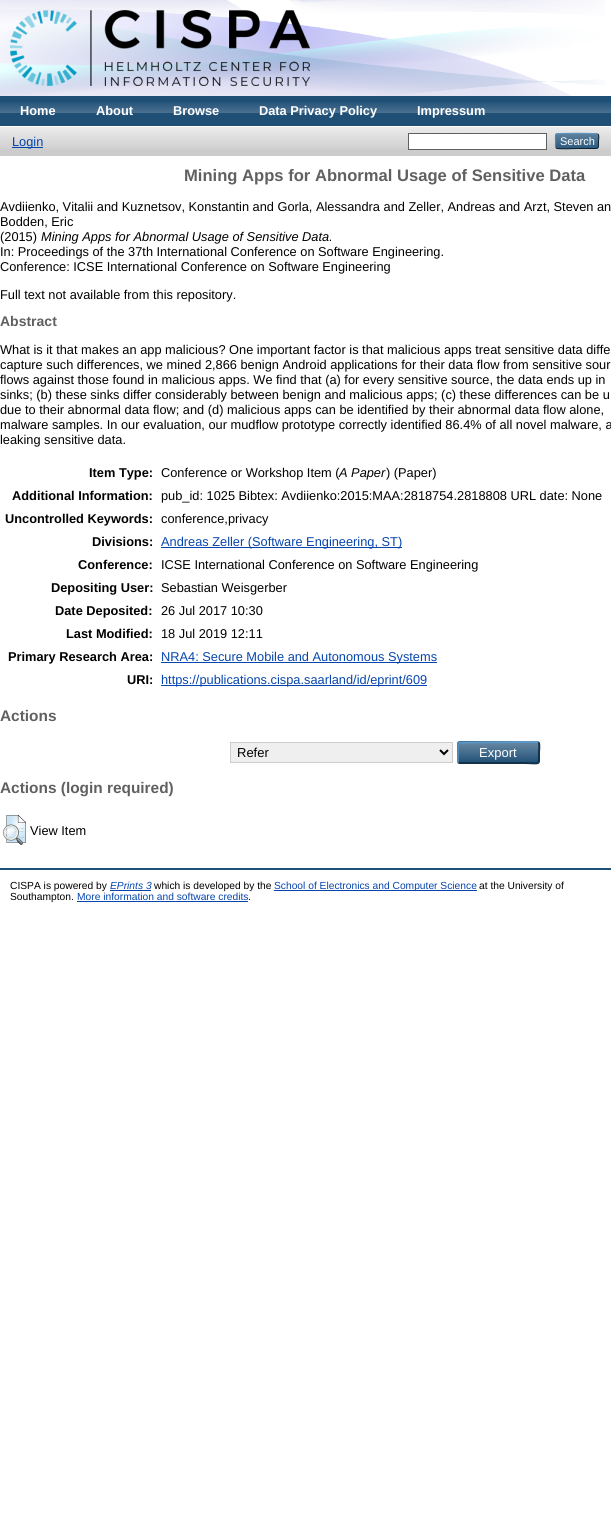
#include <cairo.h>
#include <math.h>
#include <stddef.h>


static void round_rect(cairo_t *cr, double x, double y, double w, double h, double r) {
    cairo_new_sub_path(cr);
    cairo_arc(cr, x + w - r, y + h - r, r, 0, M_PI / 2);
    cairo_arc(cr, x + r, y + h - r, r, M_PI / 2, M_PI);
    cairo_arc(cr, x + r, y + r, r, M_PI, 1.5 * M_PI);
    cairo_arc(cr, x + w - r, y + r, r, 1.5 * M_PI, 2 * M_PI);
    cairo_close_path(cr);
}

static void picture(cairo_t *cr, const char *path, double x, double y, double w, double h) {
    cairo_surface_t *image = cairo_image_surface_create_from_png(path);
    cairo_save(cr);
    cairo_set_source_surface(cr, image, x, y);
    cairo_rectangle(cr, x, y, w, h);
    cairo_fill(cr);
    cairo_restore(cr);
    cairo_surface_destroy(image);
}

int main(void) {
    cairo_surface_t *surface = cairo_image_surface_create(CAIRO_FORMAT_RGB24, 611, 1525);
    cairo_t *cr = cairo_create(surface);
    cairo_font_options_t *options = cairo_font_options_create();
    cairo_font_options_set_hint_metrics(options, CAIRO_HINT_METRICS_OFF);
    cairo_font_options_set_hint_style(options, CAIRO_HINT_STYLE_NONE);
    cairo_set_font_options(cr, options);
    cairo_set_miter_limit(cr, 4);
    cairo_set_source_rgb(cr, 1, 1, 1);
    cairo_paint(cr);
    picture(cr, "img1.png", 0, 0, 605, 96);
    picture(cr, "img2.png", 10, 10, 300, 76);
    cairo_set_source_rgb(cr, 0.125, 0.31, 0.463);
    cairo_rectangle(cr, 0, 96, 611, 30);
    cairo_fill(cr);
    picture(cr, "img3.png", 0, 102, 611, 11);
    cairo_select_font_face(cr, "Liberation Sans", CAIRO_FONT_SLANT_NORMAL, CAIRO_FONT_WEIGHT_BOLD);
    cairo_set_font_size(cr, 12.8);
    cairo_set_source_rgb(cr, 1, 1, 1);
    cairo_move_to(cr, 20, 115);
    cairo_show_text(cr, "Home");
    cairo_move_to(cr, 96, 115);
    cairo_show_text(cr, "About");
    cairo_move_to(cr, 173, 115);
    cairo_show_text(cr, "Browse");
    cairo_move_to(cr, 259, 115);
    cairo_show_text(cr, "Data Privacy Policy");
    cairo_move_to(cr, 417, 115);
    cairo_show_text(cr, "Impressum");
    cairo_set_source_rgb(cr, 0.8, 0.8, 0.8);
    cairo_rectangle(cr, 0, 127, 611, 29);
    cairo_fill(cr);
    picture(cr, "img4.png", 0, 127, 611, 22);
    cairo_set_source_rgb(cr, 0.024, 0.271, 0.678);
    cairo_rectangle(cr, 12, 147, 31, 1);
    cairo_fill(cr);
    cairo_select_font_face(cr, "Liberation Sans", CAIRO_FONT_SLANT_NORMAL, CAIRO_FONT_WEIGHT_NORMAL);
    cairo_move_to(cr, 12, 146);
    cairo_show_text(cr, "Login");
    cairo_set_source_rgb(cr, 1, 1, 1);
    cairo_rectangle(cr, 408.5, 133.5, 138, 16);
    cairo_fill_preserve(cr);
    cairo_set_source_rgb(cr, 0.376, 0.376, 0.376);
    cairo_set_line_width(cr, 1);
    cairo_stroke(cr);
    cairo_set_source_rgb(cr, 0.122, 0.31, 0.463);
    round_rect(cr, 555, 133, 44, 16, 3);
    cairo_fill(cr);
    picture(cr, "img5.png", 555, 133, 44, 16);
    cairo_new_path(cr);
    cairo_move_to(cr, 556, 134);
    cairo_curve_to(cr, 557.5, 133, 596.5, 133, 598, 134);
    cairo_set_source_rgb(cr, 0.357, 0.592, 0.78);
    cairo_stroke(cr);
    cairo_new_path(cr);
    cairo_move_to(cr, 598, 134);
    cairo_curve_to(cr, 599.5, 136, 598.5, 139, 598.5, 141);
    cairo_curve_to(cr, 598.5, 149.5, 599, 148.5, 589.5, 148.5);
    cairo_line_to(cr, 577, 148.5);
    cairo_curve_to(cr, 574, 148.5, 558, 149.5, 556, 148);
    cairo_set_source_rgb(cr, 0.051, 0.129, 0.192);
    cairo_stroke(cr);
    cairo_new_path(cr);
    cairo_move_to(cr, 556, 148);
    cairo_curve_to(cr, 555, 146.5, 555.5, 142.5, 555.5, 141);
    cairo_curve_to(cr, 555.5, 139.5, 555, 135.5, 556, 134);
    cairo_set_source_rgb(cr, 0.322, 0.529, 0.702);
    cairo_stroke(cr);
    cairo_set_font_size(cr, 11);
    cairo_set_source_rgb(cr, 1, 1, 1);
    cairo_move_to(cr, 560, 145);
    cairo_show_text(cr, "Search");
    cairo_select_font_face(cr, "Liberation Sans", CAIRO_FONT_SLANT_NORMAL, CAIRO_FONT_WEIGHT_BOLD);
    cairo_set_font_size(cr, 16.6);
    cairo_set_source_rgb(cr, 0.376, 0.376, 0.376);
    cairo_move_to(cr, 184, 181);
    cairo_show_text(cr, "Mining Apps for Abnormal Usage of Sensitive Data");
    cairo_select_font_face(cr, "Liberation Sans", CAIRO_FONT_SLANT_NORMAL, CAIRO_FONT_WEIGHT_NORMAL);
    cairo_set_font_size(cr, 12.8);
    cairo_set_source_rgb(cr, 0, 0, 0);
    cairo_move_to(cr, 0, 211);
    cairo_show_text(cr, "Avdiienko, Vitalii and Kuznetsov, Konstantin and Gorla, Alessandra and Zeller, Andreas and Arzt, Steven an");
    cairo_move_to(cr, 0, 226);
    cairo_show_text(cr, "Bodden, Eric");
    cairo_move_to(cr, 0, 241);
    cairo_show_text(cr, "(2015)");
    cairo_select_font_face(cr, "Liberation Sans", CAIRO_FONT_SLANT_ITALIC, CAIRO_FONT_WEIGHT_NORMAL);
    cairo_move_to(cr, 41, 241);
    cairo_show_text(cr, "Mining Apps for Abnormal Usage of Sensitive Data.");
    cairo_select_font_face(cr, "Liberation Sans", CAIRO_FONT_SLANT_NORMAL, CAIRO_FONT_WEIGHT_NORMAL);
    cairo_move_to(cr, 0, 256);
    cairo_show_text(cr, "In: Proceedings of the 37th International Conference on Software Engineering.");
    cairo_move_to(cr, 0, 271);
    cairo_show_text(cr, "Conference: ICSE International Conference on Software Engineering");
    cairo_move_to(cr, 0, 299);
    cairo_show_text(cr, "Full text not available from this repository.");
    cairo_select_font_face(cr, "Liberation Sans", CAIRO_FONT_SLANT_NORMAL, CAIRO_FONT_WEIGHT_BOLD);
    cairo_set_font_size(cr, 14);
    cairo_set_source_rgb(cr, 0.376, 0.376, 0.376);
    cairo_move_to(cr, 0, 326);
    cairo_show_text(cr, "Abstract");
    cairo_select_font_face(cr, "Liberation Sans", CAIRO_FONT_SLANT_NORMAL, CAIRO_FONT_WEIGHT_NORMAL);
    cairo_set_font_size(cr, 12.8);
    cairo_set_source_rgb(cr, 0, 0, 0);
    cairo_move_to(cr, 0, 354);
    cairo_show_text(cr, "What is it that makes an app malicious? One important factor is that malicious apps treat sensitive data diffe");
    cairo_move_to(cr, 0, 369);
    cairo_show_text(cr, "capture such differences, we mined 2,866 benign Android applications for their data flow from sensitive sour");
    cairo_move_to(cr, 0, 384);
    cairo_show_text(cr, "flows against those found in malicious apps. We find that (a) for every sensitive source, the data ends up in");
    cairo_move_to(cr, 0, 399);
    cairo_show_text(cr, "sinks; (b) these sinks differ considerably between benign and malicious apps; (c) these differences can be u");
    cairo_move_to(cr, 0, 414);
    cairo_show_text(cr, "due to their abnormal data flow; and (d) malicious apps can be identified by their abnormal data flow alone,");
    cairo_move_to(cr, 0, 429);
    cairo_show_text(cr, "malware samples. In our evaluation, our mudflow prototype correctly identified 86.4% of all novel malware, a");
    cairo_move_to(cr, 0, 444);
    cairo_show_text(cr, "leaking sensitive data.");
    cairo_select_font_face(cr, "Liberation Sans", CAIRO_FONT_SLANT_NORMAL, CAIRO_FONT_WEIGHT_BOLD);
    cairo_move_to(cr, 89, 477);
    cairo_show_text(cr, "Item Type:");
    cairo_select_font_face(cr, "Liberation Sans", CAIRO_FONT_SLANT_NORMAL, CAIRO_FONT_WEIGHT_NORMAL);
    cairo_move_to(cr, 161, 477);
    cairo_show_text(cr, "Conference or Workshop Item (");
    cairo_select_font_face(cr, "Liberation Sans", CAIRO_FONT_SLANT_ITALIC, CAIRO_FONT_WEIGHT_NORMAL);
    cairo_move_to(cr, 339, 477);
    cairo_show_text(cr, "A Paper");
    cairo_select_font_face(cr, "Liberation Sans", CAIRO_FONT_SLANT_NORMAL, CAIRO_FONT_WEIGHT_NORMAL);
    cairo_move_to(cr, 386, 477);
    cairo_show_text(cr, ") (Paper)");
    cairo_select_font_face(cr, "Liberation Sans", CAIRO_FONT_SLANT_NORMAL, CAIRO_FONT_WEIGHT_BOLD);
    cairo_move_to(cr, 12, 500);
    cairo_show_text(cr, "Additional Information:");
    cairo_select_font_face(cr, "Liberation Sans", CAIRO_FONT_SLANT_NORMAL, CAIRO_FONT_WEIGHT_NORMAL);
    cairo_move_to(cr, 161, 500);
    cairo_show_text(cr, "pub_id: 1025 Bibtex: Avdiienko:2015:MAA:2818754.2818808 URL date: None");
    cairo_select_font_face(cr, "Liberation Sans", CAIRO_FONT_SLANT_NORMAL, CAIRO_FONT_WEIGHT_BOLD);
    cairo_move_to(cr, 5, 523);
    cairo_show_text(cr, "Uncontrolled Keywords:");
    cairo_select_font_face(cr, "Liberation Sans", CAIRO_FONT_SLANT_NORMAL, CAIRO_FONT_WEIGHT_NORMAL);
    cairo_move_to(cr, 161, 523);
    cairo_show_text(cr, "conference,privacy");
    cairo_select_font_face(cr, "Liberation Sans", CAIRO_FONT_SLANT_NORMAL, CAIRO_FONT_WEIGHT_BOLD);
    cairo_move_to(cr, 92, 546);
    cairo_show_text(cr, "Divisions:");
    cairo_set_source_rgb(cr, 0.024, 0.271, 0.678);
    cairo_rectangle(cr, 161, 547, 241, 1);
    cairo_fill(cr);
    cairo_select_font_face(cr, "Liberation Sans", CAIRO_FONT_SLANT_NORMAL, CAIRO_FONT_WEIGHT_NORMAL);
    cairo_move_to(cr, 161, 546);
    cairo_show_text(cr, "Andreas Zeller (Software Engineering, ST)");
    cairo_select_font_face(cr, "Liberation Sans", CAIRO_FONT_SLANT_NORMAL, CAIRO_FONT_WEIGHT_BOLD);
    cairo_set_source_rgb(cr, 0, 0, 0);
    cairo_move_to(cr, 78, 569);
    cairo_show_text(cr, "Conference:");
    cairo_select_font_face(cr, "Liberation Sans", CAIRO_FONT_SLANT_NORMAL, CAIRO_FONT_WEIGHT_NORMAL);
    cairo_move_to(cr, 161, 569);
    cairo_show_text(cr, "ICSE International Conference on Software Engineering");
    cairo_select_font_face(cr, "Liberation Sans", CAIRO_FONT_SLANT_NORMAL, CAIRO_FONT_WEIGHT_BOLD);
    cairo_move_to(cr, 51, 592);
    cairo_show_text(cr, "Depositing User:");
    cairo_select_font_face(cr, "Liberation Sans", CAIRO_FONT_SLANT_NORMAL, CAIRO_FONT_WEIGHT_NORMAL);
    cairo_move_to(cr, 161, 592);
    cairo_show_text(cr, "Sebastian Weisgerber");
    cairo_select_font_face(cr, "Liberation Sans", CAIRO_FONT_SLANT_NORMAL, CAIRO_FONT_WEIGHT_BOLD);
    cairo_move_to(cr, 55, 615);
    cairo_show_text(cr, "Date Deposited:");
    cairo_select_font_face(cr, "Liberation Sans", CAIRO_FONT_SLANT_NORMAL, CAIRO_FONT_WEIGHT_NORMAL);
    cairo_move_to(cr, 161, 615);
    cairo_show_text(cr, "26 Jul 2017 10:30");
    cairo_select_font_face(cr, "Liberation Sans", CAIRO_FONT_SLANT_NORMAL, CAIRO_FONT_WEIGHT_BOLD);
    cairo_move_to(cr, 66, 638);
    cairo_show_text(cr, "Last Modified:");
    cairo_select_font_face(cr, "Liberation Sans", CAIRO_FONT_SLANT_NORMAL, CAIRO_FONT_WEIGHT_NORMAL);
    cairo_move_to(cr, 161, 638);
    cairo_show_text(cr, "18 Jul 2019 12:11");
    cairo_select_font_face(cr, "Liberation Sans", CAIRO_FONT_SLANT_NORMAL, CAIRO_FONT_WEIGHT_BOLD);
    cairo_move_to(cr, 8, 661);
    cairo_show_text(cr, "Primary Research Area:");
    cairo_set_source_rgb(cr, 0.024, 0.271, 0.678);
    cairo_rectangle(cr, 161, 662, 276, 1);
    cairo_fill(cr);
    cairo_select_font_face(cr, "Liberation Sans", CAIRO_FONT_SLANT_NORMAL, CAIRO_FONT_WEIGHT_NORMAL);
    cairo_move_to(cr, 161, 661);
    cairo_show_text(cr, "NRA4: Secure Mobile and Autonomous Systems");
    cairo_select_font_face(cr, "Liberation Sans", CAIRO_FONT_SLANT_NORMAL, CAIRO_FONT_WEIGHT_BOLD);
    cairo_set_source_rgb(cr, 0, 0, 0);
    cairo_move_to(cr, 127, 684);
    cairo_show_text(cr, "URI:");
    cairo_set_source_rgb(cr, 0.024, 0.271, 0.678);
    cairo_rectangle(cr, 161, 685, 266, 1);
    cairo_fill(cr);
    cairo_select_font_face(cr, "Liberation Sans", CAIRO_FONT_SLANT_NORMAL, CAIRO_FONT_WEIGHT_NORMAL);
    cairo_move_to(cr, 161, 684);
    cairo_show_text(cr, "https://publications.cispa.saarland/id/eprint/609");
    cairo_select_font_face(cr, "Liberation Sans", CAIRO_FONT_SLANT_NORMAL, CAIRO_FONT_WEIGHT_BOLD);
    cairo_set_font_size(cr, 15.4);
    cairo_set_source_rgb(cr, 0.376, 0.376, 0.376);
    cairo_move_to(cr, 0, 721);
    cairo_show_text(cr, "Actions");
    cairo_set_source_rgb(cr, 0.937, 0.937, 0.937);
    cairo_rectangle(cr, 230.5, 742.5, 222, 20);
    cairo_fill_preserve(cr);
    cairo_set_source_rgb(cr, 0.8, 0.8, 0.8);
    cairo_stroke(cr);
    cairo_new_path(cr);
    cairo_move_to(cr, 440, 750);
    cairo_line_to(cr, 444, 754);
    cairo_line_to(cr, 448, 750);
    cairo_set_source_rgb(cr, 0, 0, 0);
    cairo_set_line_width(cr, 2);
    cairo_stroke(cr);
    cairo_select_font_face(cr, "Liberation Sans", CAIRO_FONT_SLANT_NORMAL, CAIRO_FONT_WEIGHT_NORMAL);
    cairo_set_font_size(cr, 13);
    cairo_move_to(cr, 237, 757);
    cairo_show_text(cr, "Refer");
    cairo_set_source_rgb(cr, 0.122, 0.31, 0.463);
    round_rect(cr, 457, 741, 83, 23, 3);
    cairo_fill(cr);
    picture(cr, "img6.png", 457, 743, 83, 19);
    cairo_new_path(cr);
    cairo_move_to(cr, 458.5, 742.5);
    cairo_line_to(cr, 524, 742);
    cairo_line_to(cr, 537, 742);
    cairo_line_to(cr, 538.5, 742.5);
    cairo_set_source_rgb(cr, 0.357, 0.592, 0.78);
    cairo_stroke(cr);
    cairo_new_path(cr);
    cairo_move_to(cr, 538.5, 742.5);
    cairo_curve_to(cr, 540, 744, 539, 750.5, 539, 752.5);
    cairo_curve_to(cr, 539, 766.5, 540.5, 763, 524, 763);
    cairo_line_to(cr, 460, 763);
    cairo_line_to(cr, 458.5, 762.5);
    cairo_set_source_rgb(cr, 0.075, 0.196, 0.29);
    cairo_stroke(cr);
    cairo_new_path(cr);
    cairo_move_to(cr, 458.5, 762.5);
    cairo_curve_to(cr, 458, 762, 458, 761.5, 458, 761);
    cairo_line_to(cr, 458, 744);
    cairo_curve_to(cr, 458, 743.5, 458, 743, 458.5, 742.5);
    cairo_set_source_rgb(cr, 0.322, 0.529, 0.702);
    cairo_stroke(cr);
    cairo_set_source_rgb(cr, 1, 1, 1);
    cairo_move_to(cr, 479, 757);
    cairo_show_text(cr, "Export");
    cairo_select_font_face(cr, "Liberation Sans", CAIRO_FONT_SLANT_NORMAL, CAIRO_FONT_WEIGHT_BOLD);
    cairo_set_font_size(cr, 15.4);
    cairo_set_source_rgb(cr, 0.376, 0.376, 0.376);
    cairo_move_to(cr, 0, 793);
    cairo_show_text(cr, "Actions (login required)");
    picture(cr, "img7.png", 3, 815, 23, 30);
    cairo_select_font_face(cr, "Liberation Sans", CAIRO_FONT_SLANT_NORMAL, CAIRO_FONT_WEIGHT_NORMAL);
    cairo_set_font_size(cr, 12.8);
    cairo_set_source_rgb(cr, 0, 0, 0);
    cairo_move_to(cr, 30, 835);
    cairo_show_text(cr, "View Item");
    cairo_set_source_rgb(cr, 0.125, 0.31, 0.463);
    cairo_rectangle(cr, 0, 868, 611, 2);
    cairo_fill(cr);
    cairo_set_font_size(cr, 10.25);
    cairo_set_source_rgb(cr, 0, 0, 0);
    cairo_move_to(cr, 10, 889);
    cairo_show_text(cr, "CISPA is powered by");
    cairo_select_font_face(cr, "Liberation Sans", CAIRO_FONT_SLANT_ITALIC, CAIRO_FONT_WEIGHT_NORMAL);
    cairo_set_source_rgb(cr, 0.024, 0.271, 0.678);
    cairo_move_to(cr, 110, 889);
    cairo_show_text(cr, "EPrints 3");
    cairo_rectangle(cr, 110, 890, 41, 1);
    cairo_fill(cr);
    cairo_select_font_face(cr, "Liberation Sans", CAIRO_FONT_SLANT_NORMAL, CAIRO_FONT_WEIGHT_NORMAL);
    cairo_set_source_rgb(cr, 0, 0, 0);
    cairo_move_to(cr, 154, 889);
    cairo_show_text(cr, "which is developed by the");
    cairo_set_source_rgb(cr, 0.024, 0.271, 0.678);
    cairo_rectangle(cr, 274, 890, 203, 1);
    cairo_fill(cr);
    cairo_move_to(cr, 274, 889);
    cairo_show_text(cr, "School of Electronics and Computer Science");
    cairo_set_source_rgb(cr, 0, 0, 0);
    cairo_move_to(cr, 479, 889);
    cairo_show_text(cr, "at the University of");
    cairo_move_to(cr, 10, 900);
    cairo_show_text(cr, "Southampton.");
    cairo_set_source_rgb(cr, 0.024, 0.271, 0.678);
    cairo_move_to(cr, 77, 900);
    cairo_show_text(cr, "More information and software credits");
    cairo_rectangle(cr, 77, 901, 171, 1);
    cairo_fill(cr);
    cairo_set_source_rgb(cr, 0, 0, 0);
    cairo_move_to(cr, 248, 900);
    cairo_show_text(cr, ".");
    cairo_surface_write_to_png(surface, "page.png");
    cairo_font_options_destroy(options);
    cairo_destroy(cr);
    cairo_surface_destroy(surface);
    return 0;
}
